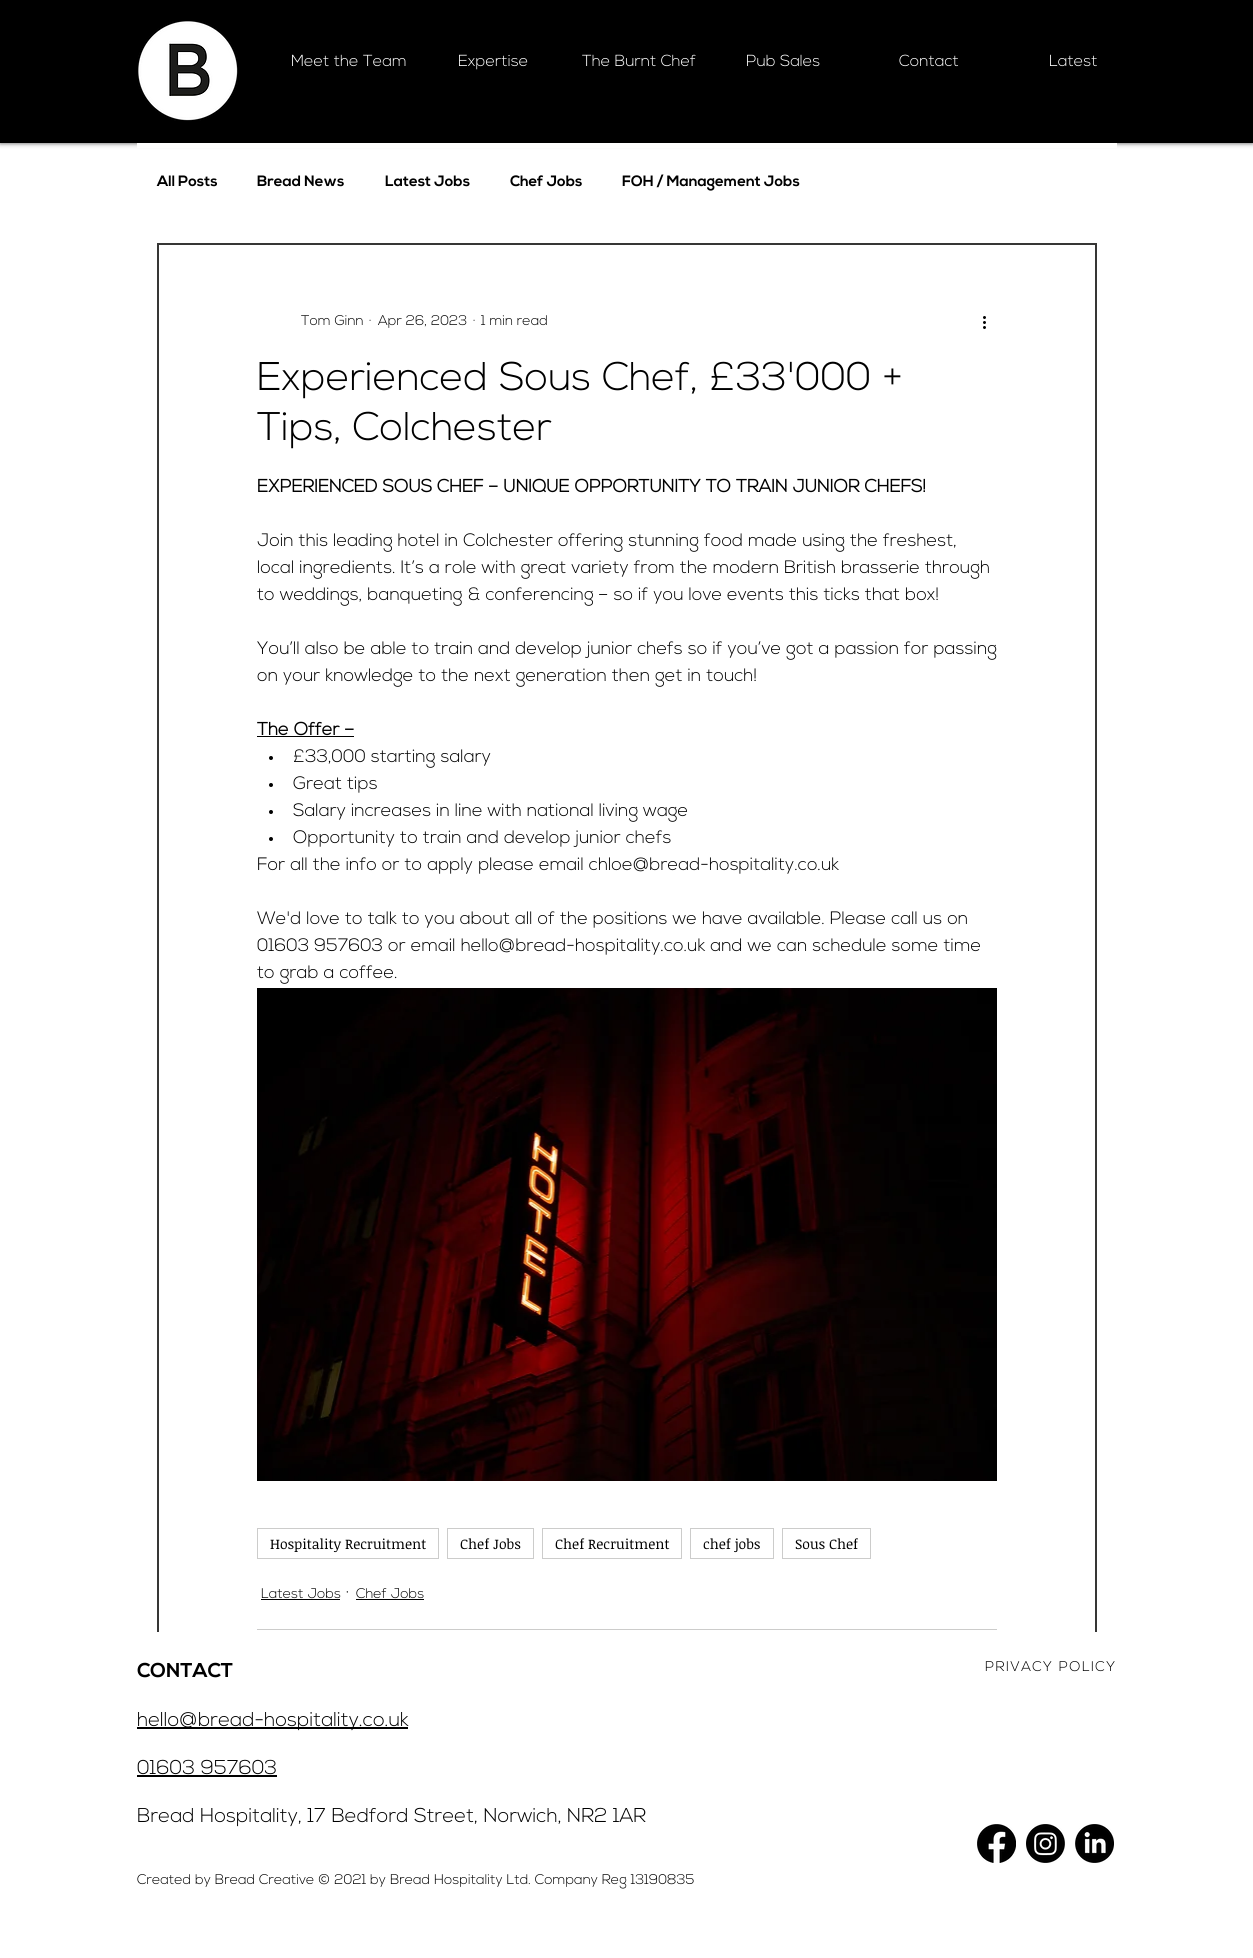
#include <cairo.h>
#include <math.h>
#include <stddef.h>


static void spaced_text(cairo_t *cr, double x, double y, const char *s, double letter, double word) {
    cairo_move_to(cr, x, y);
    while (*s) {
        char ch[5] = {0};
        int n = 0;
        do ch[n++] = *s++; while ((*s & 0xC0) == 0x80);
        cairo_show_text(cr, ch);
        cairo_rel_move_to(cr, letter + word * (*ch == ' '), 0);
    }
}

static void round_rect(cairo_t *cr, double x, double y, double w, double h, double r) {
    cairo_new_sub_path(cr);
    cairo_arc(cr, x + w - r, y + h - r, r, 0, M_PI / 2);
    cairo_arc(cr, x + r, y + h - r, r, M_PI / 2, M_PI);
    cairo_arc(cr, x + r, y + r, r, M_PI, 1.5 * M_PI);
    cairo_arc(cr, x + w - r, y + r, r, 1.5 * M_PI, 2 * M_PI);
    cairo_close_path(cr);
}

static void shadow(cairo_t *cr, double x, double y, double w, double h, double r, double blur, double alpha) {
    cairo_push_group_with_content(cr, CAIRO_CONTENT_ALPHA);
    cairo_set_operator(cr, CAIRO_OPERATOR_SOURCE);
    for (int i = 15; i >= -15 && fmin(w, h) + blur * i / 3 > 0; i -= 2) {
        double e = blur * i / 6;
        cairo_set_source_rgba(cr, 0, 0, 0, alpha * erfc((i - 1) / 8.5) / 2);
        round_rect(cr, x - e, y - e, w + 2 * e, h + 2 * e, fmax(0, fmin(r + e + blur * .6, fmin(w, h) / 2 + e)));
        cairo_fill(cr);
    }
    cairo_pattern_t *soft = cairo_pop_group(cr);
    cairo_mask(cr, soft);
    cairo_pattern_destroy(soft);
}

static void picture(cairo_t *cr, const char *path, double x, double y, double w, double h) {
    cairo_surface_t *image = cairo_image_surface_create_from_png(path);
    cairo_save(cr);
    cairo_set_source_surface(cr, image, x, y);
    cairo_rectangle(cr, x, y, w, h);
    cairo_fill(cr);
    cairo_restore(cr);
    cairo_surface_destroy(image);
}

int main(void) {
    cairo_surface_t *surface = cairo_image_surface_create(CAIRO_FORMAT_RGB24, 1253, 1958);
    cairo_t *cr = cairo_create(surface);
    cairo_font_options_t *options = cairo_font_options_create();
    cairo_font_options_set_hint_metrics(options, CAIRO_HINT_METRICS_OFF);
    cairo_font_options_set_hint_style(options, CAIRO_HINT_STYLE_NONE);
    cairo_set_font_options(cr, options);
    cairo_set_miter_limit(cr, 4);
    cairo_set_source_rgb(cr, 1, 1, 1);
    cairo_paint(cr);
    cairo_set_source_rgb(cr, 0, 0, 0);
    shadow(cr, 0, 0, 1253, 143, 0, 2.5, 0.7);
    cairo_set_source_rgb(cr, 0, 0, 0);
    cairo_rectangle(cr, 0, 0, 1253, 143);
    cairo_fill(cr);
    picture(cr, "img1.png", 138, 21, 100, 100);
    cairo_select_font_face(cr, "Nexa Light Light", CAIRO_FONT_SLANT_NORMAL, CAIRO_FONT_WEIGHT_NORMAL);
    cairo_set_font_size(cr, 16);
    cairo_set_source_rgb(cr, 1, 1, 1);
    cairo_move_to(cr, 291, 66);
    cairo_show_text(cr, "Meet the Team");
    cairo_move_to(cr, 458, 66);
    cairo_show_text(cr, "Expertise");
    cairo_move_to(cr, 582, 66);
    cairo_show_text(cr, "The Burnt Chef");
    cairo_move_to(cr, 746, 66);
    cairo_show_text(cr, "Pub Sales");
    cairo_move_to(cr, 899, 66);
    cairo_show_text(cr, "Contact");
    cairo_move_to(cr, 1049, 66);
    cairo_show_text(cr, "Latest");
    cairo_set_source_rgb(cr, 1, 1, 0.996);
    cairo_rectangle(cr, 137, 143, 980, 5);
    cairo_fill(cr);
    cairo_select_font_face(cr, "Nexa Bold", CAIRO_FONT_SLANT_NORMAL, CAIRO_FONT_WEIGHT_BOLD);
    cairo_set_font_size(cr, 15);
    cairo_set_source_rgb(cr, 0, 0, 0);
    cairo_move_to(cr, 157, 186);
    cairo_show_text(cr, "All Posts");
    cairo_move_to(cr, 257, 186);
    cairo_show_text(cr, "Bread News");
    cairo_move_to(cr, 385, 186);
    cairo_show_text(cr, "Latest Jobs");
    cairo_move_to(cr, 510, 186);
    cairo_show_text(cr, "Chef Jobs");
    cairo_move_to(cr, 622, 186);
    cairo_show_text(cr, "FOH / Management Jobs");
    cairo_rectangle(cr, 158, 244, 938, 1552);
    cairo_set_source_rgb(cr, 0.212, 0.212, 0.208);
    cairo_stroke(cr);
    cairo_select_font_face(cr, "Nexa Light Light", CAIRO_FONT_SLANT_NORMAL, CAIRO_FONT_WEIGHT_NORMAL);
    cairo_set_font_size(cr, 14);
    cairo_set_source_rgb(cr, 0, 0, 0);
    cairo_move_to(cr, 301, 325);
    cairo_show_text(cr, "Tom Ginn");
    cairo_move_to(cr, 369, 325);
    cairo_show_text(cr, "·");
    cairo_move_to(cr, 378, 325);
    cairo_show_text(cr, "Apr 26, 2023");
    cairo_move_to(cr, 473, 325);
    cairo_show_text(cr, "·");
    cairo_move_to(cr, 481, 325);
    cairo_show_text(cr, "1 min read");
    picture(cr, "img2.png", 983, 316, 3, 13);
    cairo_set_font_size(cr, 40);
    cairo_move_to(cr, 257, 390);
    cairo_show_text(cr, "Experienced Sous Chef, £33'000 +");
    cairo_move_to(cr, 257, 440);
    cairo_show_text(cr, "Tips, Colchester");
    cairo_select_font_face(cr, "Nexa Light", CAIRO_FONT_SLANT_NORMAL, CAIRO_FONT_WEIGHT_BOLD);
    cairo_set_font_size(cr, 18);
    cairo_move_to(cr, 257, 492);
    cairo_show_text(cr, "EXPERIENCED SOUS CHEF – UNIQUE OPPORTUNITY TO TRAIN JUNIOR CHEFS!");
    cairo_select_font_face(cr, "Nexa Light Light", CAIRO_FONT_SLANT_NORMAL, CAIRO_FONT_WEIGHT_NORMAL);
    cairo_move_to(cr, 257, 546);
    cairo_show_text(cr, "Join this leading hotel in Colchester offering stunning food made using the freshest,");
    cairo_move_to(cr, 257, 573);
    cairo_show_text(cr, "local ingredients. It’s a role with great variety from the modern British brasserie through");
    cairo_move_to(cr, 257, 600);
    cairo_show_text(cr, "to weddings, banqueting & conferencing – so if you love events this ticks that box!");
    cairo_move_to(cr, 257, 654);
    cairo_show_text(cr, "You’ll also be able to train and develop junior chefs so if you’ve got a passion for passing");
    cairo_move_to(cr, 257, 681);
    cairo_show_text(cr, "on your knowledge to the next generation then get in touch!");
    cairo_select_font_face(cr, "Nexa Light", CAIRO_FONT_SLANT_NORMAL, CAIRO_FONT_WEIGHT_BOLD);
    cairo_move_to(cr, 257, 735);
    cairo_show_text(cr, "The Offer –");
    cairo_rectangle(cr, 257, 736, 97, 1);
    cairo_fill(cr);
    cairo_arc(cr, 271, 758, 2, 0, 2 * M_PI);
    cairo_fill(cr);
    cairo_select_font_face(cr, "Nexa Light Light", CAIRO_FONT_SLANT_NORMAL, CAIRO_FONT_WEIGHT_NORMAL);
    cairo_move_to(cr, 293, 762);
    cairo_show_text(cr, "£33,000 starting salary");
    cairo_new_path(cr);
    cairo_arc(cr, 271, 785, 2, 0, 2 * M_PI);
    cairo_fill(cr);
    cairo_move_to(cr, 293, 789);
    cairo_show_text(cr, "Great tips");
    cairo_new_path(cr);
    cairo_arc(cr, 271, 812, 2, 0, 2 * M_PI);
    cairo_fill(cr);
    cairo_move_to(cr, 293, 816);
    cairo_show_text(cr, "Salary increases in line with national living wage");
    cairo_new_path(cr);
    cairo_arc(cr, 271, 839, 2, 0, 2 * M_PI);
    cairo_fill(cr);
    cairo_move_to(cr, 293, 843);
    cairo_show_text(cr, "Opportunity to train and develop junior chefs");
    cairo_move_to(cr, 257, 870);
    cairo_show_text(cr, "For all the info or to apply please email chloe@bread-hospitality.co.uk");
    cairo_move_to(cr, 257, 924);
    cairo_show_text(cr, "We'd love to talk to you about all of the positions we have available. Please call us on");
    cairo_move_to(cr, 257, 951);
    cairo_show_text(cr, "01603 957603 or email hello@bread-hospitality.co.uk and we can schedule some time");
    cairo_move_to(cr, 257, 978);
    cairo_show_text(cr, "to grab a coffee.");
    picture(cr, "img3.png", 257, 988, 740, 493);
    cairo_rectangle(cr, 257.5, 1528.5, 181, 30);
    cairo_set_source_rgb(cr, 0.8, 0.8, 0.796);
    cairo_set_line_width(cr, 1);
    cairo_stroke(cr);
    cairo_select_font_face(cr, "Noticia Text", CAIRO_FONT_SLANT_NORMAL, CAIRO_FONT_WEIGHT_NORMAL);
    cairo_set_font_size(cr, 14);
    cairo_set_source_rgb(cr, 0, 0, 0);
    cairo_move_to(cr, 270, 1549);
    cairo_show_text(cr, "Hospitality Recruitment");
    cairo_rectangle(cr, 447.5, 1528.5, 86, 30);
    cairo_set_source_rgb(cr, 0.8, 0.8, 0.796);
    cairo_stroke(cr);
    cairo_set_source_rgb(cr, 0, 0, 0);
    cairo_move_to(cr, 460, 1549);
    cairo_show_text(cr, "Chef Jobs");
    cairo_rectangle(cr, 542.5, 1528.5, 139, 30);
    cairo_set_source_rgb(cr, 0.8, 0.8, 0.796);
    cairo_stroke(cr);
    cairo_set_source_rgb(cr, 0, 0, 0);
    cairo_move_to(cr, 555, 1549);
    cairo_show_text(cr, "Chef Recruitment");
    cairo_rectangle(cr, 690.5, 1528.5, 83, 30);
    cairo_set_source_rgb(cr, 0.8, 0.8, 0.796);
    cairo_stroke(cr);
    cairo_set_source_rgb(cr, 0, 0, 0);
    cairo_move_to(cr, 703, 1549);
    cairo_show_text(cr, "chef jobs");
    cairo_rectangle(cr, 782.5, 1528.5, 88, 30);
    cairo_set_source_rgb(cr, 0.8, 0.8, 0.796);
    cairo_stroke(cr);
    cairo_set_source_rgb(cr, 0, 0, 0);
    cairo_move_to(cr, 795, 1549);
    cairo_show_text(cr, "Sous Chef");
    cairo_select_font_face(cr, "Nexa Light Light", CAIRO_FONT_SLANT_NORMAL, CAIRO_FONT_WEIGHT_NORMAL);
    cairo_move_to(cr, 261, 1598);
    cairo_show_text(cr, "Latest Jobs");
    cairo_rectangle(cr, 261, 1599, 79, 1);
    cairo_fill(cr);
    cairo_set_font_size(cr, 18);
    cairo_move_to(cr, 346, 1598);
    cairo_show_text(cr, "·");
    cairo_set_font_size(cr, 14);
    cairo_move_to(cr, 356, 1598);
    cairo_show_text(cr, "Chef Jobs");
    cairo_rectangle(cr, 356, 1599, 68, 1);
    cairo_fill(cr);
    cairo_set_source_rgb(cr, 0.8, 0.8, 0.796);
    cairo_rectangle(cr, 257, 1629, 740, 1);
    cairo_fill(cr);
    cairo_set_source_rgb(cr, 1, 1, 1);
    cairo_rectangle(cr, 157, 1632, 940, 165);
    cairo_fill(cr);
    cairo_select_font_face(cr, "Nexa Bold", CAIRO_FONT_SLANT_NORMAL, CAIRO_FONT_WEIGHT_BOLD);
    cairo_set_font_size(cr, 20);
    cairo_set_source_rgb(cr, 0, 0, 0);
    cairo_move_to(cr, 137, 1677);
    cairo_show_text(cr, "CONTACT");
    cairo_rectangle(cr, 137, 1727, 271, 2);
    cairo_fill(cr);
    cairo_select_font_face(cr, "Nexa Light Light", CAIRO_FONT_SLANT_NORMAL, CAIRO_FONT_WEIGHT_NORMAL);
    cairo_move_to(cr, 137, 1726);
    cairo_show_text(cr, "hello@bread-hospitality.co.uk");
    cairo_move_to(cr, 137, 1774);
    cairo_show_text(cr, "01603 957603");
    cairo_rectangle(cr, 137, 1775, 140, 2);
    cairo_fill(cr);
    cairo_move_to(cr, 137, 1822);
    cairo_show_text(cr, "Bread Hospitality, 17 Bedford Street, Norwich, NR2 1AR");
    cairo_set_font_size(cr, 14);
    cairo_move_to(cr, 137, 1884);
    cairo_show_text(cr, "Created by Bread Creative © 2021 by Bread Hospitality Ltd. Company Reg 13190835");
    spaced_text(cr, 985, 1671, "PRIVACY POLICY", 1.4, 0);
    picture(cr, "img4.png", 977, 1824, 39, 39);
    picture(cr, "img5.png", 1026, 1824, 39, 39);
    picture(cr, "img6.png", 1075, 1824, 39, 39);
    cairo_surface_write_to_png(surface, "page.png");
    cairo_font_options_destroy(options);
    cairo_destroy(cr);
    cairo_surface_destroy(surface);
    return 0;
}
